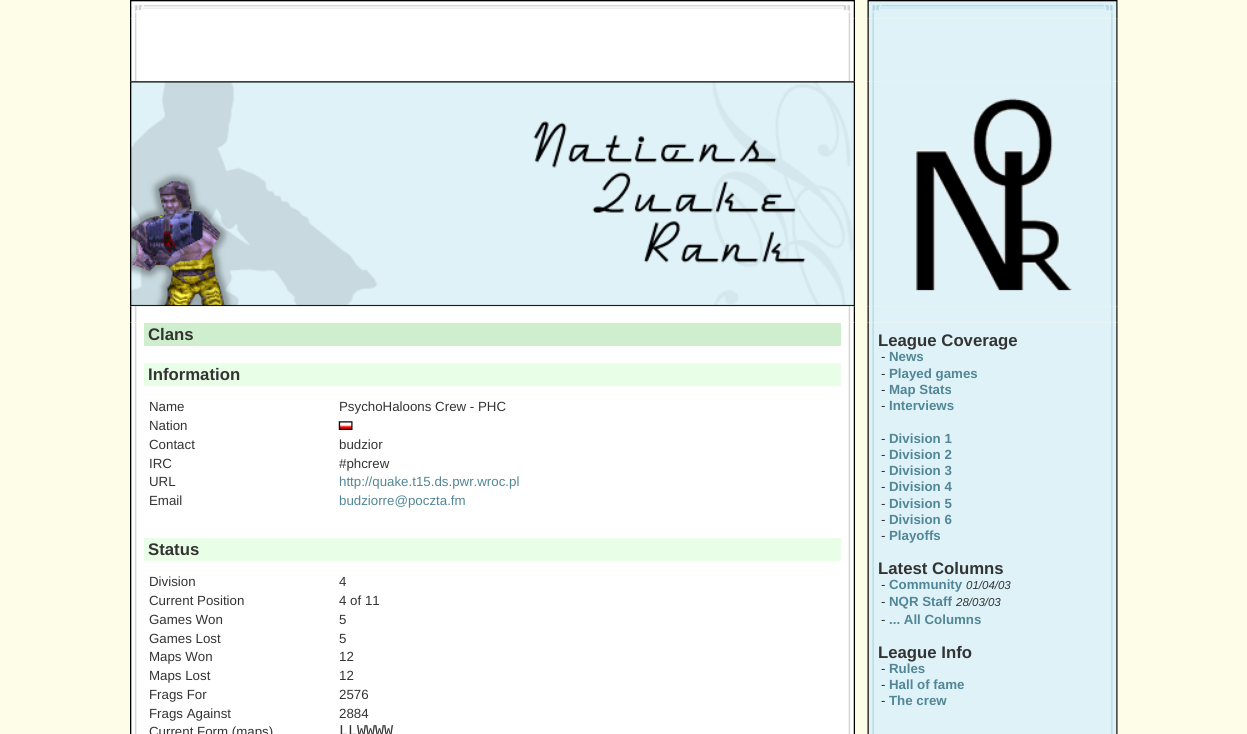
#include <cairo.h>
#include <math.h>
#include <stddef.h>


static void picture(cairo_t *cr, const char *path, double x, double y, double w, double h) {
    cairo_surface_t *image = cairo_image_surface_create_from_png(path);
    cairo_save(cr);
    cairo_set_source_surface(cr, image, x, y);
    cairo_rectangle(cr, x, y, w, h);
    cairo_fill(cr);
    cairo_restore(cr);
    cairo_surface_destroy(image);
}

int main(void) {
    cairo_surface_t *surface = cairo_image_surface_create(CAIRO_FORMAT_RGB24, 1247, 734);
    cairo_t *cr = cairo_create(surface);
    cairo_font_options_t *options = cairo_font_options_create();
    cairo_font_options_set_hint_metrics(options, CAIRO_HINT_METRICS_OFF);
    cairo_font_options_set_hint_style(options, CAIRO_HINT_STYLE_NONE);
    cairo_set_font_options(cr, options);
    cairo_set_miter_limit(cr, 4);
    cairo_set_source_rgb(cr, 0.996, 0.996, 0.91);
    cairo_paint(cr);
    picture(cr, "img1.png", 130, 0, 725, 19);
    picture(cr, "img2.png", 867, 0, 251, 19);
    picture(cr, "img3.png", 130, 18, 725, 64);
    picture(cr, "img4.png", 867, 18, 251, 64);
    picture(cr, "img5.png", 130, 81, 725, 226);
    picture(cr, "img6.png", 867, 81, 251, 226);
    picture(cr, "img7.png", 916, 98, 156, 193);
    picture(cr, "img8.png", 130, 306, 725, 17);
    picture(cr, "img9.png", 867, 306, 251, 17);
    picture(cr, "img10.png", 130, 322, 725, 412);
    cairo_set_source_rgb(cr, 0.812, 0.933, 0.804);
    cairo_rectangle(cr, 144, 323, 697, 23);
    cairo_fill(cr);
    cairo_select_font_face(cr, "Liberation Sans", CAIRO_FONT_SLANT_NORMAL, CAIRO_FONT_WEIGHT_BOLD);
    cairo_set_font_size(cr, 16.75);
    cairo_set_source_rgb(cr, 0.2, 0.2, 0.2);
    cairo_move_to(cr, 148, 340);
    cairo_show_text(cr, "Clans");
    cairo_set_source_rgb(cr, 0.914, 0.996, 0.902);
    cairo_rectangle(cr, 144, 363, 697, 23);
    cairo_fill(cr);
    cairo_set_source_rgb(cr, 0.2, 0.2, 0.2);
    cairo_move_to(cr, 148, 380);
    cairo_show_text(cr, "Information");
    cairo_select_font_face(cr, "Liberation Sans", CAIRO_FONT_SLANT_NORMAL, CAIRO_FONT_WEIGHT_NORMAL);
    cairo_set_font_size(cr, 13.3);
    cairo_move_to(cr, 149, 411);
    cairo_show_text(cr, "Name");
    cairo_move_to(cr, 339, 411);
    cairo_show_text(cr, "PsychoHaloons Crew - PHC");
    cairo_move_to(cr, 149, 430);
    cairo_show_text(cr, "Nation");
    picture(cr, "img11.png", 338, 421, 15, 9);
    cairo_move_to(cr, 149, 449);
    cairo_show_text(cr, "Contact");
    cairo_move_to(cr, 339, 449);
    cairo_show_text(cr, "budzior");
    cairo_move_to(cr, 149, 468);
    cairo_show_text(cr, "IRC");
    cairo_move_to(cr, 339, 468);
    cairo_show_text(cr, "#phcrew");
    cairo_move_to(cr, 149, 486);
    cairo_show_text(cr, "URL");
    cairo_set_source_rgb(cr, 0.322, 0.525, 0.588);
    cairo_move_to(cr, 339, 486);
    cairo_show_text(cr, "http://quake.t15.ds.pwr.wroc.pl");
    cairo_set_source_rgb(cr, 0.2, 0.2, 0.2);
    cairo_move_to(cr, 149, 505);
    cairo_show_text(cr, "Email");
    cairo_set_source_rgb(cr, 0.322, 0.525, 0.588);
    cairo_move_to(cr, 339, 505);
    cairo_show_text(cr, "budziorre@poczta.fm");
    cairo_set_source_rgb(cr, 0.914, 0.996, 0.902);
    cairo_rectangle(cr, 144, 538, 697, 23);
    cairo_fill(cr);
    cairo_select_font_face(cr, "Liberation Sans", CAIRO_FONT_SLANT_NORMAL, CAIRO_FONT_WEIGHT_BOLD);
    cairo_set_font_size(cr, 16.75);
    cairo_set_source_rgb(cr, 0.2, 0.2, 0.2);
    cairo_move_to(cr, 148, 555);
    cairo_show_text(cr, "Status");
    cairo_select_font_face(cr, "Liberation Sans", CAIRO_FONT_SLANT_NORMAL, CAIRO_FONT_WEIGHT_NORMAL);
    cairo_set_font_size(cr, 13.3);
    cairo_move_to(cr, 149, 586);
    cairo_show_text(cr, "Division");
    cairo_move_to(cr, 339, 586);
    cairo_show_text(cr, "4");
    cairo_move_to(cr, 149, 605);
    cairo_show_text(cr, "Current Position");
    cairo_move_to(cr, 339, 605);
    cairo_show_text(cr, "4 of 11");
    cairo_move_to(cr, 149, 624);
    cairo_show_text(cr, "Games Won");
    cairo_move_to(cr, 339, 624);
    cairo_show_text(cr, "5");
    cairo_move_to(cr, 149, 643);
    cairo_show_text(cr, "Games Lost");
    cairo_move_to(cr, 339, 643);
    cairo_show_text(cr, "5");
    cairo_move_to(cr, 149, 661);
    cairo_show_text(cr, "Maps Won");
    cairo_move_to(cr, 339, 661);
    cairo_show_text(cr, "12");
    cairo_move_to(cr, 149, 680);
    cairo_show_text(cr, "Maps Lost");
    cairo_move_to(cr, 339, 680);
    cairo_show_text(cr, "12");
    cairo_move_to(cr, 149, 699);
    cairo_show_text(cr, "Frags For");
    cairo_move_to(cr, 339, 699);
    cairo_show_text(cr, "2576");
    cairo_move_to(cr, 149, 718);
    cairo_show_text(cr, "Frags Against");
    cairo_move_to(cr, 339, 718);
    cairo_show_text(cr, "2884");
    cairo_move_to(cr, 149, 736);
    cairo_show_text(cr, "Current Form (maps)");
    cairo_select_font_face(cr, "Liberation Mono", CAIRO_FONT_SLANT_NORMAL, CAIRO_FONT_WEIGHT_NORMAL);
    cairo_set_font_size(cr, 15);
    cairo_move_to(cr, 339, 735);
    cairo_show_text(cr, "LLWWWW");
    picture(cr, "img12.png", 867, 322, 251, 412);
    cairo_select_font_face(cr, "Liberation Sans", CAIRO_FONT_SLANT_NORMAL, CAIRO_FONT_WEIGHT_BOLD);
    cairo_set_font_size(cr, 16.75);
    cairo_move_to(cr, 878, 346);
    cairo_show_text(cr, "League Coverage");
    cairo_select_font_face(cr, "Liberation Sans", CAIRO_FONT_SLANT_NORMAL, CAIRO_FONT_WEIGHT_NORMAL);
    cairo_set_font_size(cr, 13.3);
    cairo_move_to(cr, 881, 361);
    cairo_show_text(cr, "-");
    cairo_select_font_face(cr, "Liberation Sans", CAIRO_FONT_SLANT_NORMAL, CAIRO_FONT_WEIGHT_BOLD);
    cairo_set_source_rgb(cr, 0.322, 0.525, 0.588);
    cairo_move_to(cr, 889, 361);
    cairo_show_text(cr, "News");
    cairo_select_font_face(cr, "Liberation Sans", CAIRO_FONT_SLANT_NORMAL, CAIRO_FONT_WEIGHT_NORMAL);
    cairo_set_source_rgb(cr, 0.2, 0.2, 0.2);
    cairo_move_to(cr, 881, 378);
    cairo_show_text(cr, "-");
    cairo_select_font_face(cr, "Liberation Sans", CAIRO_FONT_SLANT_NORMAL, CAIRO_FONT_WEIGHT_BOLD);
    cairo_set_source_rgb(cr, 0.322, 0.525, 0.588);
    cairo_move_to(cr, 889, 378);
    cairo_show_text(cr, "Played games");
    cairo_select_font_face(cr, "Liberation Sans", CAIRO_FONT_SLANT_NORMAL, CAIRO_FONT_WEIGHT_NORMAL);
    cairo_set_source_rgb(cr, 0.2, 0.2, 0.2);
    cairo_move_to(cr, 881, 394);
    cairo_show_text(cr, "-");
    cairo_select_font_face(cr, "Liberation Sans", CAIRO_FONT_SLANT_NORMAL, CAIRO_FONT_WEIGHT_BOLD);
    cairo_set_source_rgb(cr, 0.322, 0.525, 0.588);
    cairo_move_to(cr, 889, 394);
    cairo_show_text(cr, "Map Stats");
    cairo_select_font_face(cr, "Liberation Sans", CAIRO_FONT_SLANT_NORMAL, CAIRO_FONT_WEIGHT_NORMAL);
    cairo_set_source_rgb(cr, 0.2, 0.2, 0.2);
    cairo_move_to(cr, 881, 410);
    cairo_show_text(cr, "-");
    cairo_select_font_face(cr, "Liberation Sans", CAIRO_FONT_SLANT_NORMAL, CAIRO_FONT_WEIGHT_BOLD);
    cairo_set_source_rgb(cr, 0.322, 0.525, 0.588);
    cairo_move_to(cr, 889, 410);
    cairo_show_text(cr, "Interviews");
    cairo_select_font_face(cr, "Liberation Sans", CAIRO_FONT_SLANT_NORMAL, CAIRO_FONT_WEIGHT_NORMAL);
    cairo_set_source_rgb(cr, 0.2, 0.2, 0.2);
    cairo_move_to(cr, 881, 443);
    cairo_show_text(cr, "-");
    cairo_select_font_face(cr, "Liberation Sans", CAIRO_FONT_SLANT_NORMAL, CAIRO_FONT_WEIGHT_BOLD);
    cairo_set_source_rgb(cr, 0.322, 0.525, 0.588);
    cairo_move_to(cr, 889, 443);
    cairo_show_text(cr, "Division 1");
    cairo_select_font_face(cr, "Liberation Sans", CAIRO_FONT_SLANT_NORMAL, CAIRO_FONT_WEIGHT_NORMAL);
    cairo_set_source_rgb(cr, 0.2, 0.2, 0.2);
    cairo_move_to(cr, 881, 459);
    cairo_show_text(cr, "-");
    cairo_select_font_face(cr, "Liberation Sans", CAIRO_FONT_SLANT_NORMAL, CAIRO_FONT_WEIGHT_BOLD);
    cairo_set_source_rgb(cr, 0.322, 0.525, 0.588);
    cairo_move_to(cr, 889, 459);
    cairo_show_text(cr, "Division 2");
    cairo_select_font_face(cr, "Liberation Sans", CAIRO_FONT_SLANT_NORMAL, CAIRO_FONT_WEIGHT_NORMAL);
    cairo_set_source_rgb(cr, 0.2, 0.2, 0.2);
    cairo_move_to(cr, 881, 475);
    cairo_show_text(cr, "-");
    cairo_select_font_face(cr, "Liberation Sans", CAIRO_FONT_SLANT_NORMAL, CAIRO_FONT_WEIGHT_BOLD);
    cairo_set_source_rgb(cr, 0.322, 0.525, 0.588);
    cairo_move_to(cr, 889, 475);
    cairo_show_text(cr, "Division 3");
    cairo_select_font_face(cr, "Liberation Sans", CAIRO_FONT_SLANT_NORMAL, CAIRO_FONT_WEIGHT_NORMAL);
    cairo_set_source_rgb(cr, 0.2, 0.2, 0.2);
    cairo_move_to(cr, 881, 491);
    cairo_show_text(cr, "-");
    cairo_select_font_face(cr, "Liberation Sans", CAIRO_FONT_SLANT_NORMAL, CAIRO_FONT_WEIGHT_BOLD);
    cairo_set_source_rgb(cr, 0.322, 0.525, 0.588);
    cairo_move_to(cr, 889, 491);
    cairo_show_text(cr, "Division 4");
    cairo_select_font_face(cr, "Liberation Sans", CAIRO_FONT_SLANT_NORMAL, CAIRO_FONT_WEIGHT_NORMAL);
    cairo_set_source_rgb(cr, 0.2, 0.2, 0.2);
    cairo_move_to(cr, 881, 508);
    cairo_show_text(cr, "-");
    cairo_select_font_face(cr, "Liberation Sans", CAIRO_FONT_SLANT_NORMAL, CAIRO_FONT_WEIGHT_BOLD);
    cairo_set_source_rgb(cr, 0.322, 0.525, 0.588);
    cairo_move_to(cr, 889, 508);
    cairo_show_text(cr, "Division 5");
    cairo_select_font_face(cr, "Liberation Sans", CAIRO_FONT_SLANT_NORMAL, CAIRO_FONT_WEIGHT_NORMAL);
    cairo_set_source_rgb(cr, 0.2, 0.2, 0.2);
    cairo_move_to(cr, 881, 524);
    cairo_show_text(cr, "-");
    cairo_select_font_face(cr, "Liberation Sans", CAIRO_FONT_SLANT_NORMAL, CAIRO_FONT_WEIGHT_BOLD);
    cairo_set_source_rgb(cr, 0.322, 0.525, 0.588);
    cairo_move_to(cr, 889, 524);
    cairo_show_text(cr, "Division 6");
    cairo_select_font_face(cr, "Liberation Sans", CAIRO_FONT_SLANT_NORMAL, CAIRO_FONT_WEIGHT_NORMAL);
    cairo_set_source_rgb(cr, 0.2, 0.2, 0.2);
    cairo_move_to(cr, 881, 540);
    cairo_show_text(cr, "-");
    cairo_select_font_face(cr, "Liberation Sans", CAIRO_FONT_SLANT_NORMAL, CAIRO_FONT_WEIGHT_BOLD);
    cairo_set_source_rgb(cr, 0.322, 0.525, 0.588);
    cairo_move_to(cr, 889, 540);
    cairo_show_text(cr, "Playoffs");
    cairo_set_font_size(cr, 16.75);
    cairo_set_source_rgb(cr, 0.2, 0.2, 0.2);
    cairo_move_to(cr, 878, 574);
    cairo_show_text(cr, "Latest Columns");
    cairo_select_font_face(cr, "Liberation Sans", CAIRO_FONT_SLANT_NORMAL, CAIRO_FONT_WEIGHT_NORMAL);
    cairo_set_font_size(cr, 13.3);
    cairo_move_to(cr, 881, 589);
    cairo_show_text(cr, "-");
    cairo_select_font_face(cr, "Liberation Sans", CAIRO_FONT_SLANT_NORMAL, CAIRO_FONT_WEIGHT_BOLD);
    cairo_set_source_rgb(cr, 0.322, 0.525, 0.588);
    cairo_move_to(cr, 889, 589);
    cairo_show_text(cr, "Community");
    cairo_select_font_face(cr, "Liberation Sans", CAIRO_FONT_SLANT_ITALIC, CAIRO_FONT_WEIGHT_NORMAL);
    cairo_set_font_size(cr, 11.5);
    cairo_set_source_rgb(cr, 0.2, 0.2, 0.2);
    cairo_move_to(cr, 966, 589);
    cairo_show_text(cr, "01/04/03");
    cairo_select_font_face(cr, "Liberation Sans", CAIRO_FONT_SLANT_NORMAL, CAIRO_FONT_WEIGHT_NORMAL);
    cairo_set_font_size(cr, 13.3);
    cairo_move_to(cr, 881, 606);
    cairo_show_text(cr, "-");
    cairo_select_font_face(cr, "Liberation Sans", CAIRO_FONT_SLANT_NORMAL, CAIRO_FONT_WEIGHT_BOLD);
    cairo_set_source_rgb(cr, 0.322, 0.525, 0.588);
    cairo_move_to(cr, 889, 606);
    cairo_show_text(cr, "NQR Staff");
    cairo_select_font_face(cr, "Liberation Sans", CAIRO_FONT_SLANT_ITALIC, CAIRO_FONT_WEIGHT_NORMAL);
    cairo_set_font_size(cr, 11.5);
    cairo_set_source_rgb(cr, 0.2, 0.2, 0.2);
    cairo_move_to(cr, 956, 606);
    cairo_show_text(cr, "28/03/03");
    cairo_select_font_face(cr, "Liberation Sans", CAIRO_FONT_SLANT_NORMAL, CAIRO_FONT_WEIGHT_NORMAL);
    cairo_set_font_size(cr, 13.3);
    cairo_move_to(cr, 881, 624);
    cairo_show_text(cr, "-");
    cairo_select_font_face(cr, "Liberation Sans", CAIRO_FONT_SLANT_NORMAL, CAIRO_FONT_WEIGHT_BOLD);
    cairo_set_source_rgb(cr, 0.322, 0.525, 0.588);
    cairo_move_to(cr, 889, 624);
    cairo_show_text(cr, "... All Columns");
    cairo_set_font_size(cr, 16.75);
    cairo_set_source_rgb(cr, 0.2, 0.2, 0.2);
    cairo_move_to(cr, 878, 658);
    cairo_show_text(cr, "League Info");
    cairo_select_font_face(cr, "Liberation Sans", CAIRO_FONT_SLANT_NORMAL, CAIRO_FONT_WEIGHT_NORMAL);
    cairo_set_font_size(cr, 13.3);
    cairo_move_to(cr, 881, 673);
    cairo_show_text(cr, "-");
    cairo_select_font_face(cr, "Liberation Sans", CAIRO_FONT_SLANT_NORMAL, CAIRO_FONT_WEIGHT_BOLD);
    cairo_set_source_rgb(cr, 0.322, 0.525, 0.588);
    cairo_move_to(cr, 889, 673);
    cairo_show_text(cr, "Rules");
    cairo_select_font_face(cr, "Liberation Sans", CAIRO_FONT_SLANT_NORMAL, CAIRO_FONT_WEIGHT_NORMAL);
    cairo_set_source_rgb(cr, 0.2, 0.2, 0.2);
    cairo_move_to(cr, 881, 689);
    cairo_show_text(cr, "-");
    cairo_select_font_face(cr, "Liberation Sans", CAIRO_FONT_SLANT_NORMAL, CAIRO_FONT_WEIGHT_BOLD);
    cairo_set_source_rgb(cr, 0.322, 0.525, 0.588);
    cairo_move_to(cr, 889, 689);
    cairo_show_text(cr, "Hall of fame");
    cairo_select_font_face(cr, "Liberation Sans", CAIRO_FONT_SLANT_NORMAL, CAIRO_FONT_WEIGHT_NORMAL);
    cairo_set_source_rgb(cr, 0.2, 0.2, 0.2);
    cairo_move_to(cr, 881, 705);
    cairo_show_text(cr, "-");
    cairo_select_font_face(cr, "Liberation Sans", CAIRO_FONT_SLANT_NORMAL, CAIRO_FONT_WEIGHT_BOLD);
    cairo_set_source_rgb(cr, 0.322, 0.525, 0.588);
    cairo_move_to(cr, 889, 705);
    cairo_show_text(cr, "The crew");
    cairo_surface_write_to_png(surface, "page.png");
    cairo_font_options_destroy(options);
    cairo_destroy(cr);
    cairo_surface_destroy(surface);
    return 0;
}
